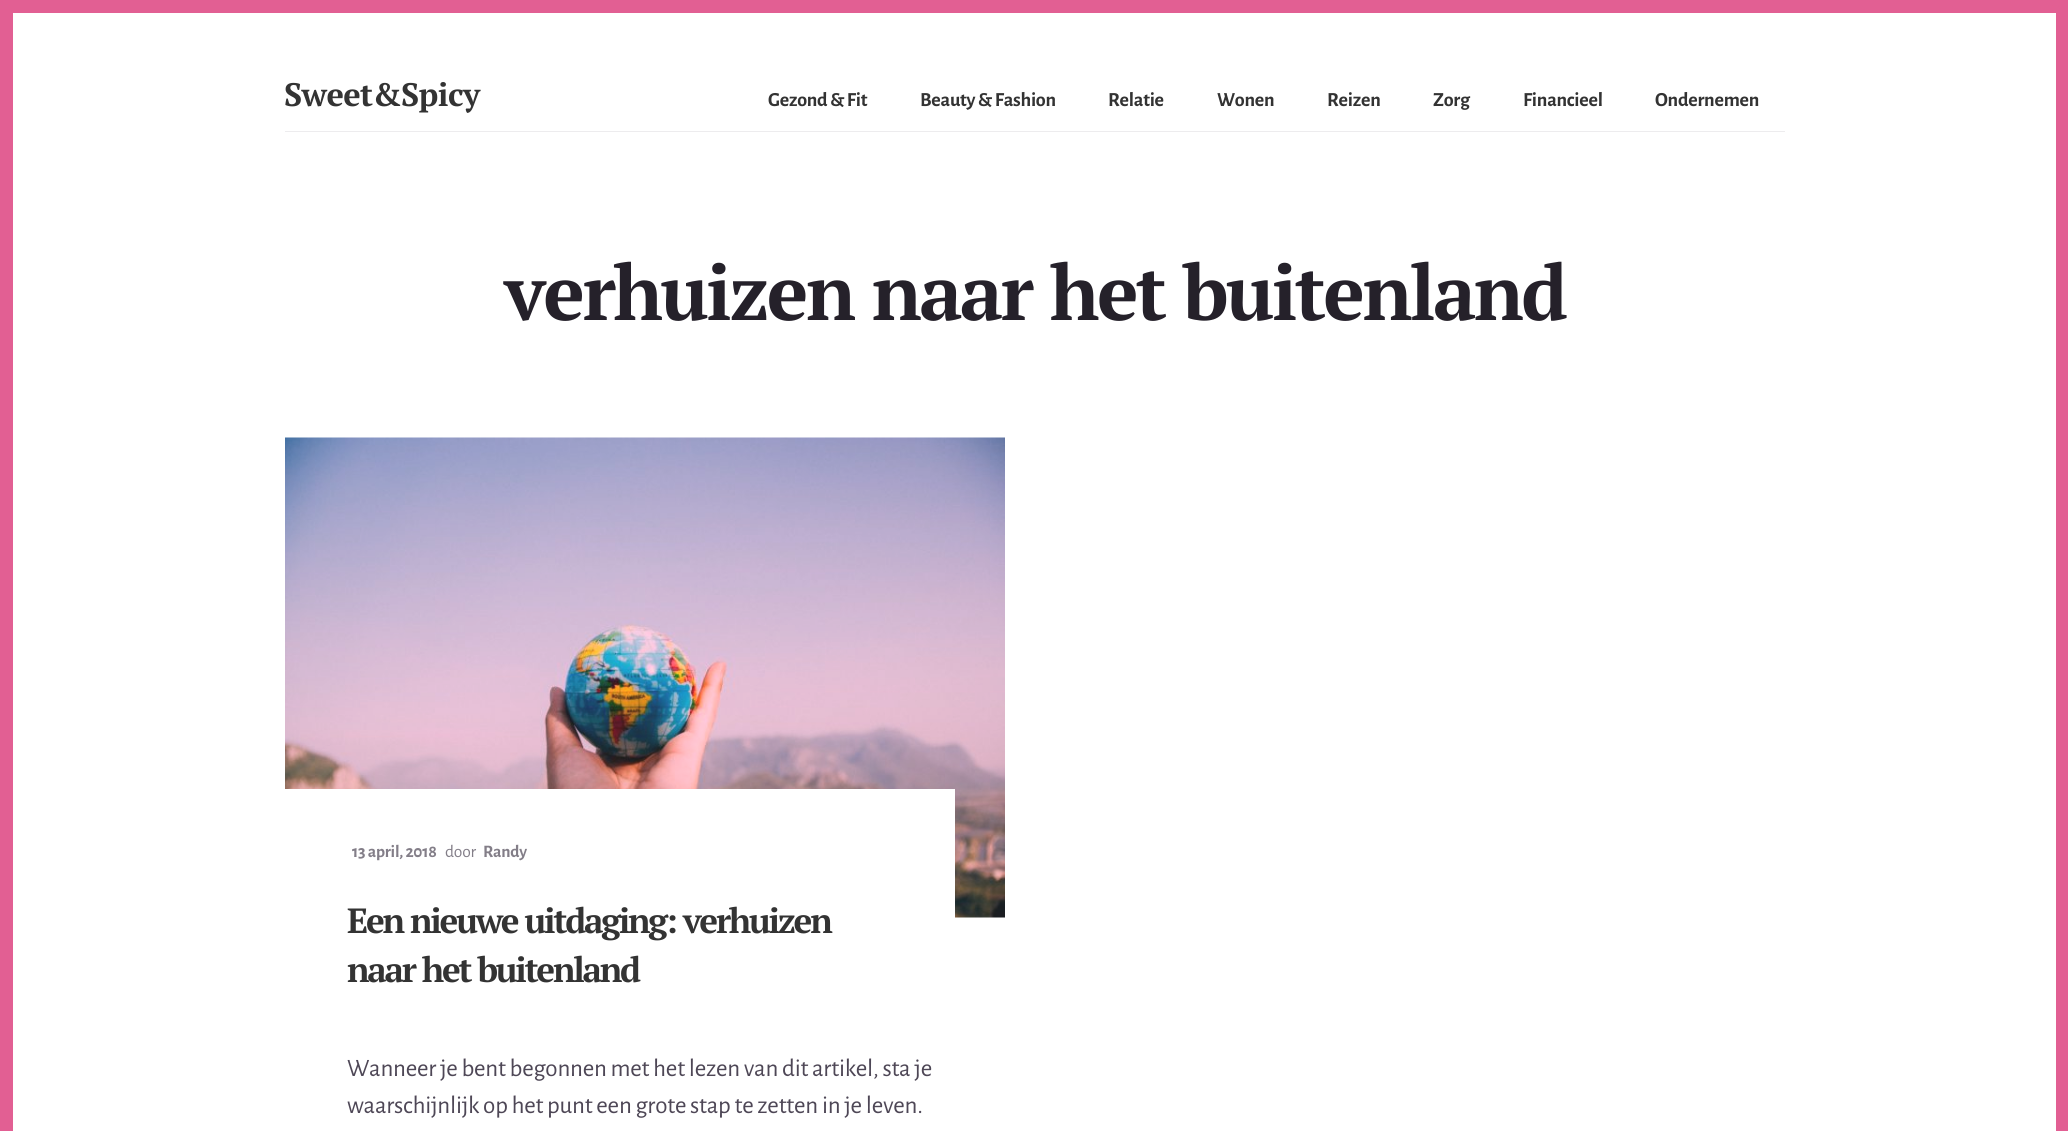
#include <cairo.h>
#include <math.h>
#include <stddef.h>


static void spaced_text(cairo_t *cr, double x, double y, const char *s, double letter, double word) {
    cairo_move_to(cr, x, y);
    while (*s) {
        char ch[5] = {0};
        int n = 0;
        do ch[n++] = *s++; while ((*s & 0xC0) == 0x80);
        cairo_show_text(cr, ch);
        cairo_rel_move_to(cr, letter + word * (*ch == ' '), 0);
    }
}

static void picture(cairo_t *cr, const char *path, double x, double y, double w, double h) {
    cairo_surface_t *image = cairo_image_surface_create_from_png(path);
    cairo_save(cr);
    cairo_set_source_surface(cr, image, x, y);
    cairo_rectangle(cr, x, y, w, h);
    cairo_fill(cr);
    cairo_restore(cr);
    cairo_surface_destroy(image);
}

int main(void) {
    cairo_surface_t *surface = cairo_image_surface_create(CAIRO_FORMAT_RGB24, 2068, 1131);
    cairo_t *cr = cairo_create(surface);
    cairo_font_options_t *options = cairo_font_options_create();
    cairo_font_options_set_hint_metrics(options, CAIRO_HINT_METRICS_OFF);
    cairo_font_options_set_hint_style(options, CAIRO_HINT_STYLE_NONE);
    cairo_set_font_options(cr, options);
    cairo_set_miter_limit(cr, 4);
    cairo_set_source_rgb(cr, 0.886, 0.373, 0.576);
    cairo_paint(cr);
    cairo_set_source_rgb(cr, 1, 1, 1);
    cairo_rectangle(cr, 13, 13, 2043, 1118);
    cairo_fill(cr);
    cairo_set_source_rgb(cr, 0.929, 0.925, 0.933);
    cairo_rectangle(cr, 285, 131, 1500, 1);
    cairo_fill(cr);
    cairo_select_font_face(cr, "PT Serif", CAIRO_FONT_SLANT_NORMAL, CAIRO_FONT_WEIGHT_BOLD);
    cairo_set_font_size(cr, 32.5);
    cairo_set_source_rgb(cr, 0.2, 0.2, 0.2);
    spaced_text(cr, 284, 106, "Sweet&Spicy", -0.6, 0);
    cairo_select_font_face(cr, "Alegreya Sans", CAIRO_FONT_SLANT_NORMAL, CAIRO_FONT_WEIGHT_BOLD);
    cairo_set_font_size(cr, 20);
    spaced_text(cr, 768, 106, "Gezond & Fit", -0.25, 0);
    spaced_text(cr, 920, 106, "Beauty & Fashion", -0.25, 0);
    spaced_text(cr, 1108, 106, "Relatie", -0.25, 0);
    spaced_text(cr, 1217, 106, "Wonen", -0.25, 0);
    spaced_text(cr, 1327, 106, "Reizen", -0.25, 0);
    spaced_text(cr, 1433, 106, "Zorg", -0.25, 0);
    spaced_text(cr, 1523, 106, "Financieel", -0.25, 0);
    spaced_text(cr, 1655, 106, "Ondernemen", -0.25, 0);
    cairo_select_font_face(cr, "PT Serif", CAIRO_FONT_SLANT_NORMAL, CAIRO_FONT_WEIGHT_BOLD);
    cairo_set_font_size(cr, 77.5);
    cairo_set_source_rgb(cr, 0.145, 0.129, 0.165);
    spaced_text(cr, 504, 320, "verhuizen naar het buitenland", -2.5, 0);
    picture(cr, "img1.png", 285, 437, 720, 481);
    cairo_set_source_rgb(cr, 1, 1, 1);
    cairo_rectangle(cr, 285, 789, 670, 129);
    cairo_fill(cr);
    cairo_select_font_face(cr, "Alegreya Sans", CAIRO_FONT_SLANT_NORMAL, CAIRO_FONT_WEIGHT_BOLD);
    cairo_set_font_size(cr, 17.5);
    cairo_set_source_rgb(cr, 0.514, 0.494, 0.533);
    spaced_text(cr, 352, 857, "13 april, 2018", -0.25, 0);
    cairo_select_font_face(cr, "Alegreya Sans", CAIRO_FONT_SLANT_NORMAL, CAIRO_FONT_WEIGHT_NORMAL);
    spaced_text(cr, 445, 857, "door", -0.25, 0);
    cairo_select_font_face(cr, "Alegreya Sans", CAIRO_FONT_SLANT_NORMAL, CAIRO_FONT_WEIGHT_BOLD);
    spaced_text(cr, 483, 857, "Randy", -0.25, 0);
    cairo_select_font_face(cr, "PT Serif", CAIRO_FONT_SLANT_NORMAL, CAIRO_FONT_WEIGHT_BOLD);
    cairo_set_font_size(cr, 35);
    cairo_set_source_rgb(cr, 0.2, 0.2, 0.2);
    spaced_text(cr, 347, 933, "Een nieuwe uitdaging: verhuizen", -2.25, 0);
    spaced_text(cr, 347, 982, "naar het buitenland", -2.25, 0);
    cairo_select_font_face(cr, "Alegreya Sans", CAIRO_FONT_SLANT_NORMAL, CAIRO_FONT_WEIGHT_NORMAL);
    cairo_set_font_size(cr, 25);
    cairo_set_source_rgb(cr, 0.306, 0.278, 0.337);
    spaced_text(cr, 347, 1076, "Wanneer je bent begonnen met het lezen van dit artikel, sta je", -0.25, 0);
    spaced_text(cr, 347, 1113, "waarschijnlijk op het punt een grote stap te zetten in je leven.", -0.25, 0);
    cairo_surface_write_to_png(surface, "page.png");
    cairo_font_options_destroy(options);
    cairo_destroy(cr);
    cairo_surface_destroy(surface);
    return 0;
}
